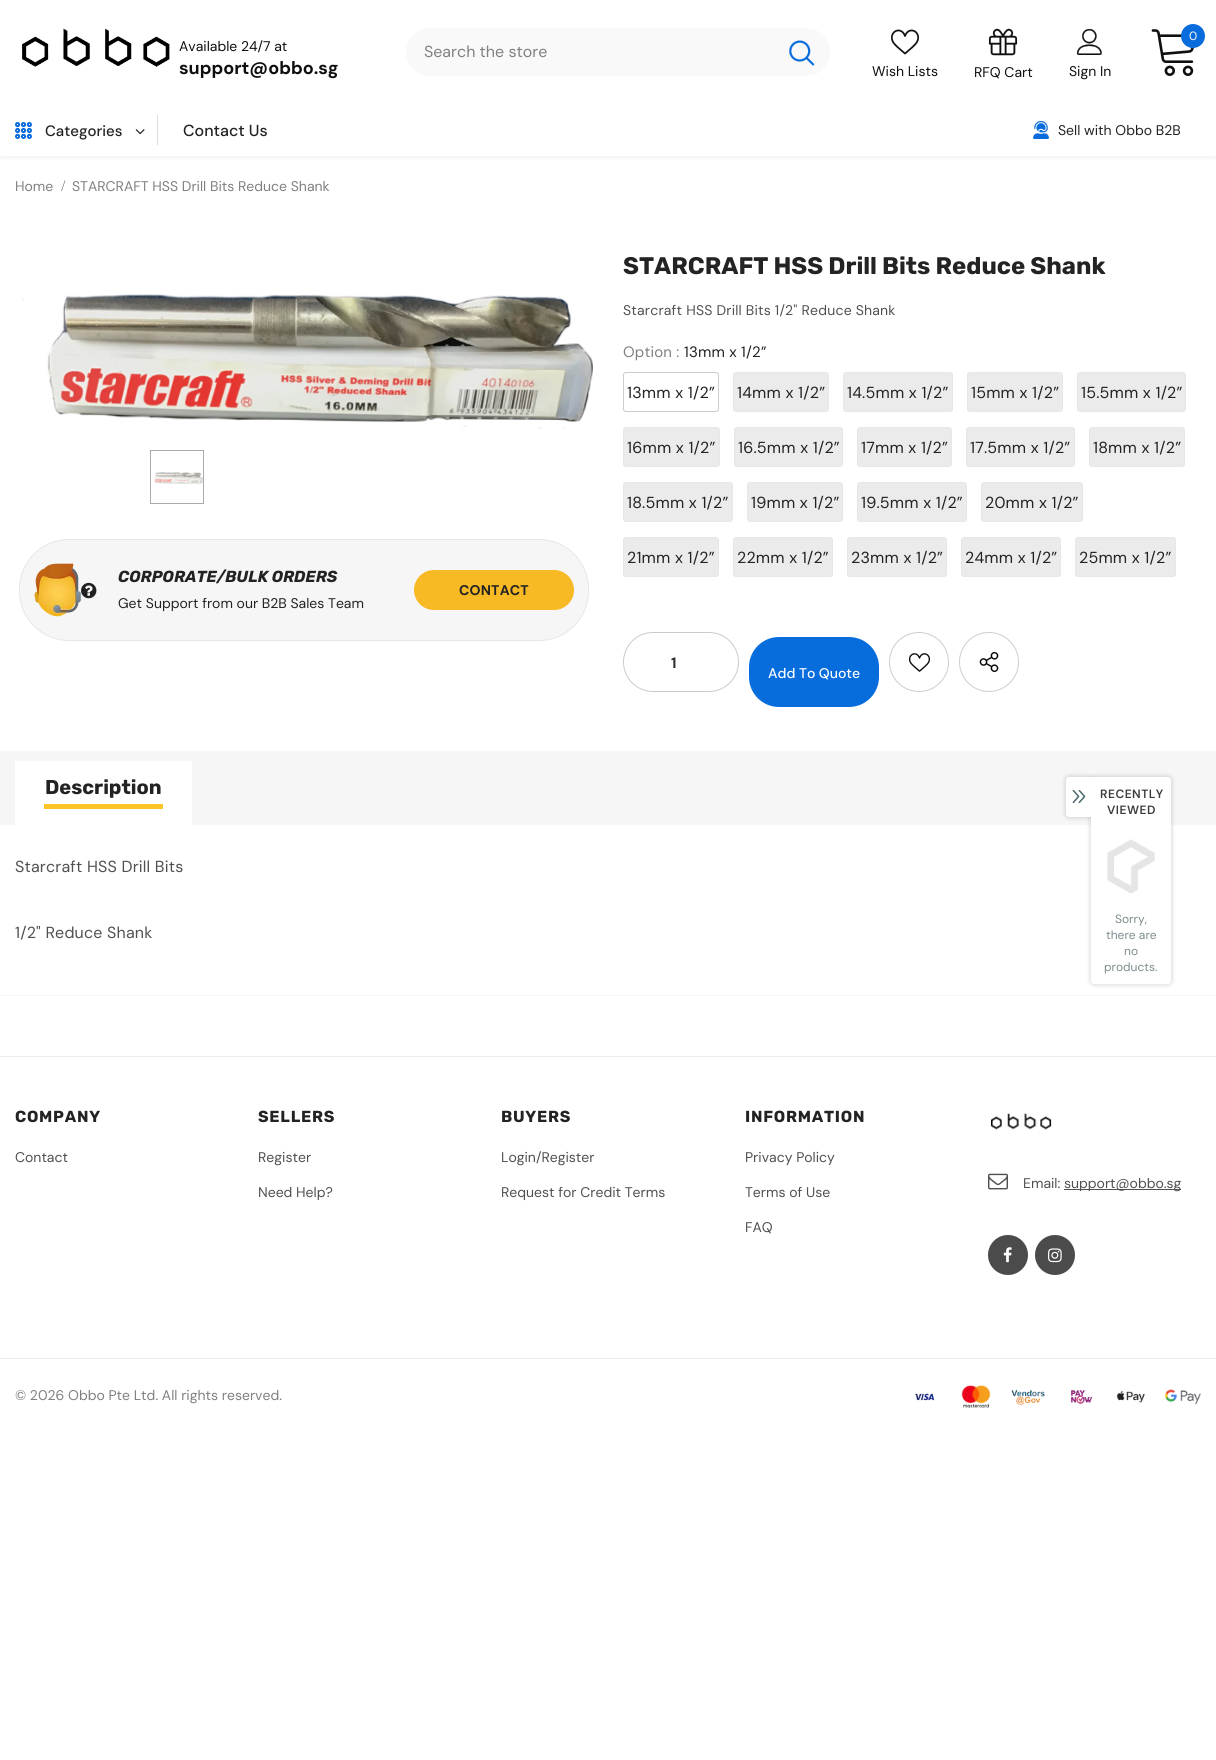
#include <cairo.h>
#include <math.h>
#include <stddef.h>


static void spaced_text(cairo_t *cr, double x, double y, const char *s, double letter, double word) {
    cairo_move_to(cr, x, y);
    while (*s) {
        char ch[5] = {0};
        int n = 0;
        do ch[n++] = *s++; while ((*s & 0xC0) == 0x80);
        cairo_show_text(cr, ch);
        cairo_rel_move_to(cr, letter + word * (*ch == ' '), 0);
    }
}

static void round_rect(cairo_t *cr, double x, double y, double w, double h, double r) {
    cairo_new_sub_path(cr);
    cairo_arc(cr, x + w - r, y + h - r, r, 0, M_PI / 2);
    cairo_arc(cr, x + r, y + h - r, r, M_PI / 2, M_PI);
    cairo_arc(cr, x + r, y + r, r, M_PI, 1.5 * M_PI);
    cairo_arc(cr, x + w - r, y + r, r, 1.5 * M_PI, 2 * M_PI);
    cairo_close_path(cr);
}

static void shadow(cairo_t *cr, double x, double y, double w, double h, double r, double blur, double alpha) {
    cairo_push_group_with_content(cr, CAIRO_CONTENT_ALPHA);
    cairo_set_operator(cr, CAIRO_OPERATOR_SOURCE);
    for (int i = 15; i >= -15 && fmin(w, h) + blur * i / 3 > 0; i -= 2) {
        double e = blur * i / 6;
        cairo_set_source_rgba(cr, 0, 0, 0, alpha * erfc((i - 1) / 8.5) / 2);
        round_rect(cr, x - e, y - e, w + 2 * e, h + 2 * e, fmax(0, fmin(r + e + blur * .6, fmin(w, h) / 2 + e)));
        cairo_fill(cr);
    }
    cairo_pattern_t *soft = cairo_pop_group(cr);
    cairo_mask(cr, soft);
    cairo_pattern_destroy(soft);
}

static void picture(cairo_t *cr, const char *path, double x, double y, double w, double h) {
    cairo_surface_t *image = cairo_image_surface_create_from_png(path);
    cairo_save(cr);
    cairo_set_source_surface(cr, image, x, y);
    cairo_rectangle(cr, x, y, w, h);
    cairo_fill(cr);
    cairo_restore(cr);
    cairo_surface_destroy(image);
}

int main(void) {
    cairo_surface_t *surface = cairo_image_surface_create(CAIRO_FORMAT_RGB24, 1216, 1760);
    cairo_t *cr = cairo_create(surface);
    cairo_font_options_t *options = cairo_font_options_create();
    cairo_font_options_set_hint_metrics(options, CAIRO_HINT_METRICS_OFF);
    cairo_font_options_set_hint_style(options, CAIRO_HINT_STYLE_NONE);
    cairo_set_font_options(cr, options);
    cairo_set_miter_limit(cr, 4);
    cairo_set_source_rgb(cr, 1, 1, 1);
    cairo_paint(cr);
    picture(cr, "img1.png", 22, 28, 148, 39);
    cairo_select_font_face(cr, "DM Sans", CAIRO_FONT_SLANT_NORMAL, CAIRO_FONT_WEIGHT_NORMAL);
    cairo_set_font_size(cr, 14);
    cairo_set_source_rgb(cr, 0.059, 0.059, 0.059);
    cairo_move_to(cr, 179, 51);
    cairo_show_text(cr, "Available 24/7 at");
    cairo_select_font_face(cr, "DM Sans", CAIRO_FONT_SLANT_NORMAL, CAIRO_FONT_WEIGHT_BOLD);
    cairo_set_font_size(cr, 18);
    cairo_move_to(cr, 179, 74);
    cairo_show_text(cr, "support@obbo.sg");
    cairo_set_source_rgb(cr, 0.976, 0.976, 0.976);
    round_rect(cr, 406, 28, 424, 48, 24);
    cairo_fill(cr);
    cairo_select_font_face(cr, "DM Sans", CAIRO_FONT_SLANT_NORMAL, CAIRO_FONT_WEIGHT_NORMAL);
    cairo_set_font_size(cr, 16);
    cairo_set_source_rgb(cr, 0.502, 0.502, 0.502);
    cairo_move_to(cr, 424, 57);
    cairo_show_text(cr, "Search the store");
    picture(cr, "img2.png", 789, 40, 26, 26);
    picture(cr, "img3.png", 1151, 29, 43, 47);
    cairo_set_source_rgb(cr, 0.039, 0.424, 0.863);
    cairo_arc(cr, 1193, 36, 12, 0, 2 * M_PI);
    cairo_fill(cr);
    cairo_set_font_size(cr, 12);
    cairo_set_source_rgb(cr, 0.976, 0.976, 0.976);
    cairo_move_to(cr, 1189, 40);
    cairo_show_text(cr, "0");
    picture(cr, "img4.png", 890, 29, 30, 26);
    cairo_set_font_size(cr, 14);
    cairo_set_source_rgb(cr, 0.059, 0.059, 0.059);
    cairo_move_to(cr, 872, 76);
    cairo_show_text(cr, "Wish Lists");
    picture(cr, "img5.png", 988, 28, 30, 28);
    cairo_move_to(cr, 974, 77);
    cairo_show_text(cr, "RFQ Cart");
    picture(cr, "img6.png", 1076, 29, 26, 26);
    cairo_move_to(cr, 1069, 76);
    cairo_show_text(cr, "Sign In");
    cairo_save(cr);
    cairo_rectangle(cr, 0, 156, 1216, 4);
    cairo_clip(cr);
    cairo_set_source_rgb(cr, 0, 0, 0);
    shadow(cr, 0, 107, 1216, 52, 0, 2.5, 0.05);
    cairo_restore(cr);
    picture(cr, "img7.png", 15, 122, 17, 17);
    cairo_select_font_face(cr, "DM Sans Medium", CAIRO_FONT_SLANT_NORMAL, CAIRO_FONT_WEIGHT_NORMAL);
    cairo_set_font_size(cr, 15);
    cairo_set_source_rgb(cr, 0.137, 0.137, 0.137);
    cairo_move_to(cr, 45, 136);
    cairo_show_text(cr, "Categories");
    picture(cr, "img8.png", 135, 129, 10, 6);
    cairo_set_source_rgb(cr, 0.871, 0.871, 0.871);
    cairo_rectangle(cr, 157, 115, 1, 30);
    cairo_fill(cr);
    cairo_set_font_size(cr, 16);
    cairo_set_source_rgb(cr, 0.137, 0.137, 0.137);
    cairo_move_to(cr, 183, 136);
    cairo_show_text(cr, "Contact Us");
    picture(cr, "img9.png", 1033, 121, 16, 18);
    cairo_select_font_face(cr, "DM Sans", CAIRO_FONT_SLANT_NORMAL, CAIRO_FONT_WEIGHT_NORMAL);
    cairo_set_font_size(cr, 14);
    cairo_move_to(cr, 1058, 135);
    cairo_show_text(cr, "Sell with Obbo B2B");
    cairo_set_source_rgb(cr, 0.502, 0.502, 0.502);
    cairo_move_to(cr, 15, 191);
    cairo_show_text(cr, "Home");
    cairo_select_font_face(cr, "Liberation Serif", CAIRO_FONT_SLANT_NORMAL, CAIRO_FONT_WEIGHT_NORMAL);
    cairo_set_font_size(cr, 16);
    cairo_move_to(cr, 61, 191);
    cairo_show_text(cr, "/");
    cairo_select_font_face(cr, "DM Sans", CAIRO_FONT_SLANT_NORMAL, CAIRO_FONT_WEIGHT_NORMAL);
    cairo_set_font_size(cr, 14);
    cairo_move_to(cr, 72, 191);
    cairo_show_text(cr, "STARCRAFT HSS Drill Bits Reduce Shank");
    picture(cr, "img10.png", 22, 294, 571, 135);
    cairo_rectangle(cr, 150.5, 450.5, 53, 53);
    cairo_set_source_rgb(cr, 0.671, 0.671, 0.671);
    cairo_set_line_width(cr, 1);
    cairo_stroke(cr);
    picture(cr, "img11.png", 154, 472, 49, 12);
    cairo_set_source_rgb(cr, 0.961, 0.961, 0.961);
    round_rect(cr, 19.5, 539.5, 569, 101, 49.5);
    cairo_fill_preserve(cr);
    cairo_set_source_rgb(cr, 0.902, 0.902, 0.902);
    cairo_stroke(cr);
    picture(cr, "img12.png", 34, 563, 47, 54);
    picture(cr, "img13.png", 81, 582, 16, 17);
    cairo_select_font_face(cr, "Rubik", CAIRO_FONT_SLANT_ITALIC, CAIRO_FONT_WEIGHT_BOLD);
    cairo_set_font_size(cr, 16);
    cairo_set_source_rgb(cr, 0.137, 0.137, 0.137);
    cairo_move_to(cr, 118, 582);
    cairo_show_text(cr, "CORPORATE/BULK ORDERS");
    cairo_select_font_face(cr, "DM Sans", CAIRO_FONT_SLANT_NORMAL, CAIRO_FONT_WEIGHT_NORMAL);
    cairo_set_font_size(cr, 14);
    cairo_move_to(cr, 118, 608);
    cairo_show_text(cr, "Get Support from our B2B Sales Team");
    cairo_set_source_rgb(cr, 0.965, 0.725, 0.141);
    round_rect(cr, 414, 570, 160, 40, 20);
    cairo_fill(cr);
    cairo_select_font_face(cr, "DM Sans", CAIRO_FONT_SLANT_NORMAL, CAIRO_FONT_WEIGHT_BOLD);
    cairo_set_source_rgb(cr, 0.137, 0.137, 0.137);
    spaced_text(cr, 459, 595, "CONTACT", 0.2, 0);
    cairo_select_font_face(cr, "Rubik", CAIRO_FONT_SLANT_NORMAL, CAIRO_FONT_WEIGHT_BOLD);
    cairo_set_font_size(cr, 24);
    cairo_move_to(cr, 623, 274);
    cairo_show_text(cr, "STARCRAFT HSS Drill Bits Reduce Shank");
    cairo_select_font_face(cr, "DM Sans", CAIRO_FONT_SLANT_NORMAL, CAIRO_FONT_WEIGHT_NORMAL);
    cairo_set_font_size(cr, 14);
    cairo_set_source_rgb(cr, 0.314, 0.314, 0.314);
    spaced_text(cr, 623, 315, "Starcraft HSS Drill Bits 1/2\" Reduce Shank", 0.2, 0);
    cairo_set_font_size(cr, 15);
    cairo_set_source_rgb(cr, 0.502, 0.502, 0.502);
    spaced_text(cr, 623, 357, "Option :", 0.2, 0);
    cairo_set_source_rgb(cr, 0.137, 0.137, 0.137);
    spaced_text(cr, 684, 357, "13mm x 1/2”", 0.2, 0);
    round_rect(cr, 623.5, 372.5, 95, 39, 2.5);
    cairo_set_source_rgb(cr, 0.8, 0.8, 0.8);
    cairo_stroke(cr);
    cairo_set_font_size(cr, 16);
    cairo_set_source_rgb(cr, 0.137, 0.137, 0.137);
    spaced_text(cr, 627, 398, "13mm x 1/2”", 0.2, 0);
    cairo_set_source_rgb(cr, 0.918, 0.918, 0.918);
    round_rect(cr, 733.5, 372.5, 95, 39, 2.5);
    cairo_fill_preserve(cr);
    cairo_set_source_rgb(cr, 0.906, 0.906, 0.906);
    cairo_stroke(cr);
    cairo_set_source_rgb(cr, 0.137, 0.137, 0.137);
    spaced_text(cr, 737, 398, "14mm x 1/2”", 0.2, 0);
    cairo_set_source_rgb(cr, 0.918, 0.918, 0.918);
    round_rect(cr, 843.5, 372.5, 109, 39, 2.5);
    cairo_fill_preserve(cr);
    cairo_set_source_rgb(cr, 0.906, 0.906, 0.906);
    cairo_stroke(cr);
    cairo_set_source_rgb(cr, 0.137, 0.137, 0.137);
    spaced_text(cr, 847, 398, "14.5mm x 1/2”", 0.2, 0);
    cairo_set_source_rgb(cr, 0.918, 0.918, 0.918);
    round_rect(cr, 967.5, 372.5, 95, 39, 2.5);
    cairo_fill_preserve(cr);
    cairo_set_source_rgb(cr, 0.906, 0.906, 0.906);
    cairo_stroke(cr);
    cairo_set_source_rgb(cr, 0.137, 0.137, 0.137);
    spaced_text(cr, 971, 398, "15mm x 1/2”", 0.2, 0);
    cairo_set_source_rgb(cr, 0.918, 0.918, 0.918);
    round_rect(cr, 1077.5, 372.5, 108, 39, 2.5);
    cairo_fill_preserve(cr);
    cairo_set_source_rgb(cr, 0.906, 0.906, 0.906);
    cairo_stroke(cr);
    cairo_set_source_rgb(cr, 0.137, 0.137, 0.137);
    spaced_text(cr, 1081, 398, "15.5mm x 1/2”", 0.2, 0);
    cairo_set_source_rgb(cr, 0.918, 0.918, 0.918);
    round_rect(cr, 623.5, 427.5, 96, 39, 2.5);
    cairo_fill_preserve(cr);
    cairo_set_source_rgb(cr, 0.906, 0.906, 0.906);
    cairo_stroke(cr);
    cairo_set_source_rgb(cr, 0.137, 0.137, 0.137);
    spaced_text(cr, 627, 453, "16mm x 1/2”", 0.2, 0);
    cairo_set_source_rgb(cr, 0.918, 0.918, 0.918);
    round_rect(cr, 734.5, 427.5, 108, 39, 2.5);
    cairo_fill_preserve(cr);
    cairo_set_source_rgb(cr, 0.906, 0.906, 0.906);
    cairo_stroke(cr);
    cairo_set_source_rgb(cr, 0.137, 0.137, 0.137);
    spaced_text(cr, 738, 453, "16.5mm x 1/2”", 0.2, 0);
    cairo_set_source_rgb(cr, 0.918, 0.918, 0.918);
    round_rect(cr, 857.5, 427.5, 94, 39, 2.5);
    cairo_fill_preserve(cr);
    cairo_set_source_rgb(cr, 0.906, 0.906, 0.906);
    cairo_stroke(cr);
    cairo_set_source_rgb(cr, 0.137, 0.137, 0.137);
    spaced_text(cr, 861, 453, "17mm x 1/2”", 0.2, 0);
    cairo_set_source_rgb(cr, 0.918, 0.918, 0.918);
    round_rect(cr, 966.5, 427.5, 108, 39, 2.5);
    cairo_fill_preserve(cr);
    cairo_set_source_rgb(cr, 0.906, 0.906, 0.906);
    cairo_stroke(cr);
    cairo_set_source_rgb(cr, 0.137, 0.137, 0.137);
    spaced_text(cr, 970, 453, "17.5mm x 1/2”", 0.2, 0);
    cairo_set_source_rgb(cr, 0.918, 0.918, 0.918);
    round_rect(cr, 1089.5, 427.5, 95, 39, 2.5);
    cairo_fill_preserve(cr);
    cairo_set_source_rgb(cr, 0.906, 0.906, 0.906);
    cairo_stroke(cr);
    cairo_set_source_rgb(cr, 0.137, 0.137, 0.137);
    spaced_text(cr, 1093, 453, "18mm x 1/2”", 0.2, 0);
    cairo_set_source_rgb(cr, 0.918, 0.918, 0.918);
    round_rect(cr, 623.5, 482.5, 109, 39, 2.5);
    cairo_fill_preserve(cr);
    cairo_set_source_rgb(cr, 0.906, 0.906, 0.906);
    cairo_stroke(cr);
    cairo_set_source_rgb(cr, 0.137, 0.137, 0.137);
    spaced_text(cr, 627, 508, "18.5mm x 1/2”", 0.2, 0);
    cairo_set_source_rgb(cr, 0.918, 0.918, 0.918);
    round_rect(cr, 747.5, 482.5, 95, 39, 2.5);
    cairo_fill_preserve(cr);
    cairo_set_source_rgb(cr, 0.906, 0.906, 0.906);
    cairo_stroke(cr);
    cairo_set_source_rgb(cr, 0.137, 0.137, 0.137);
    spaced_text(cr, 751, 508, "19mm x 1/2”", 0.2, 0);
    cairo_set_source_rgb(cr, 0.918, 0.918, 0.918);
    round_rect(cr, 857.5, 482.5, 109, 39, 2.5);
    cairo_fill_preserve(cr);
    cairo_set_source_rgb(cr, 0.906, 0.906, 0.906);
    cairo_stroke(cr);
    cairo_set_source_rgb(cr, 0.137, 0.137, 0.137);
    spaced_text(cr, 861, 508, "19.5mm x 1/2”", 0.2, 0);
    cairo_set_source_rgb(cr, 0.918, 0.918, 0.918);
    round_rect(cr, 981.5, 482.5, 101, 39, 2.5);
    cairo_fill_preserve(cr);
    cairo_set_source_rgb(cr, 0.906, 0.906, 0.906);
    cairo_stroke(cr);
    cairo_set_source_rgb(cr, 0.137, 0.137, 0.137);
    spaced_text(cr, 985, 508, "20mm x 1/2”", 0.2, 0);
    cairo_set_source_rgb(cr, 0.918, 0.918, 0.918);
    round_rect(cr, 623.5, 537.5, 95, 39, 2.5);
    cairo_fill_preserve(cr);
    cairo_set_source_rgb(cr, 0.906, 0.906, 0.906);
    cairo_stroke(cr);
    cairo_set_source_rgb(cr, 0.137, 0.137, 0.137);
    spaced_text(cr, 627, 563, "21mm x 1/2”", 0.2, 0);
    cairo_set_source_rgb(cr, 0.918, 0.918, 0.918);
    round_rect(cr, 733.5, 537.5, 99, 39, 2.5);
    cairo_fill_preserve(cr);
    cairo_set_source_rgb(cr, 0.906, 0.906, 0.906);
    cairo_stroke(cr);
    cairo_set_source_rgb(cr, 0.137, 0.137, 0.137);
    spaced_text(cr, 737, 563, "22mm x 1/2”", 0.2, 0);
    cairo_set_source_rgb(cr, 0.918, 0.918, 0.918);
    round_rect(cr, 847.5, 537.5, 99, 39, 2.5);
    cairo_fill_preserve(cr);
    cairo_set_source_rgb(cr, 0.906, 0.906, 0.906);
    cairo_stroke(cr);
    cairo_set_source_rgb(cr, 0.137, 0.137, 0.137);
    spaced_text(cr, 851, 563, "23mm x 1/2”", 0.2, 0);
    cairo_set_source_rgb(cr, 0.918, 0.918, 0.918);
    round_rect(cr, 961.5, 537.5, 99, 39, 2.5);
    cairo_fill_preserve(cr);
    cairo_set_source_rgb(cr, 0.906, 0.906, 0.906);
    cairo_stroke(cr);
    cairo_set_source_rgb(cr, 0.137, 0.137, 0.137);
    spaced_text(cr, 965, 563, "24mm x 1/2”", 0.2, 0);
    cairo_set_source_rgb(cr, 0.918, 0.918, 0.918);
    round_rect(cr, 1075.5, 537.5, 100, 39, 2.5);
    cairo_fill_preserve(cr);
    cairo_set_source_rgb(cr, 0.906, 0.906, 0.906);
    cairo_stroke(cr);
    cairo_set_source_rgb(cr, 0.137, 0.137, 0.137);
    spaced_text(cr, 1079, 563, "25mm x 1/2”", 0.2, 0);
    round_rect(cr, 623.5, 632.5, 115, 59, 29.5);
    cairo_set_source_rgb(cr, 0.796, 0.796, 0.796);
    cairo_stroke(cr);
    cairo_select_font_face(cr, "DM Sans", CAIRO_FONT_SLANT_NORMAL, CAIRO_FONT_WEIGHT_BOLD);
    cairo_set_font_size(cr, 15);
    cairo_set_source_rgb(cr, 0.176, 0.176, 0.176);
    cairo_move_to(cr, 671, 668);
    cairo_show_text(cr, "1");
    cairo_set_source_rgb(cr, 0.031, 0.424, 0.863);
    round_rect(cr, 749, 637, 130, 70, 30);
    cairo_fill(cr);
    cairo_select_font_face(cr, "DM Sans Medium", CAIRO_FONT_SLANT_NORMAL, CAIRO_FONT_WEIGHT_NORMAL);
    cairo_set_font_size(cr, 14);
    cairo_set_source_rgb(cr, 1, 1, 1);
    cairo_move_to(cr, 768, 678);
    cairo_show_text(cr, "Add To Quote");
    cairo_new_path(cr);
    cairo_arc(cr, 919, 662, 29.5, 0, 2 * M_PI);
    cairo_set_source_rgb(cr, 0.804, 0.804, 0.804);
    cairo_stroke(cr);
    picture(cr, "img14.png", 909, 653, 21, 19);
    cairo_arc(cr, 989, 662, 29.5, 0, 2 * M_PI);
    cairo_stroke(cr);
    picture(cr, "img15.png", 979, 652, 20, 20);
    cairo_set_source_rgb(cr, 0.961, 0.961, 0.961);
    cairo_rectangle(cr, 0, 751, 1216, 74);
    cairo_fill(cr);
    cairo_set_source_rgb(cr, 1, 1, 1);
    cairo_rectangle(cr, 15, 761, 177, 64);
    cairo_fill(cr);
    cairo_select_font_face(cr, "Rubik", CAIRO_FONT_SLANT_NORMAL, CAIRO_FONT_WEIGHT_BOLD);
    cairo_set_font_size(cr, 20);
    cairo_set_source_rgb(cr, 0.137, 0.137, 0.137);
    cairo_move_to(cr, 45, 794);
    cairo_show_text(cr, "Description");
    cairo_set_source_rgb(cr, 0.992, 0.773, 0.145);
    cairo_rectangle(cr, 44, 804, 119, 5);
    cairo_fill(cr);
    cairo_select_font_face(cr, "DM Sans", CAIRO_FONT_SLANT_NORMAL, CAIRO_FONT_WEIGHT_NORMAL);
    cairo_set_font_size(cr, 16);
    cairo_set_source_rgb(cr, 0.314, 0.314, 0.314);
    spaced_text(cr, 15, 872, "Starcraft HSS Drill Bits", 0.2, 0);
    spaced_text(cr, 15, 938, "1/2\" Reduce Shank", 0.2, 0);
    cairo_set_source_rgb(cr, 0.965, 0.965, 0.965);
    cairo_rectangle(cr, 0, 995, 1216, 1);
    cairo_fill(cr);
    cairo_set_source_rgb(cr, 0.922, 0.922, 0.922);
    cairo_rectangle(cr, 0, 1056, 1216, 1);
    cairo_fill(cr);
    cairo_select_font_face(cr, "Rubik", CAIRO_FONT_SLANT_NORMAL, CAIRO_FONT_WEIGHT_BOLD);
    cairo_set_source_rgb(cr, 0.137, 0.137, 0.137);
    spaced_text(cr, 15, 1122, "COMPANY", 0.75, 0);
    cairo_select_font_face(cr, "DM Sans", CAIRO_FONT_SLANT_NORMAL, CAIRO_FONT_WEIGHT_NORMAL);
    cairo_set_font_size(cr, 14);
    cairo_set_source_rgb(cr, 0.314, 0.314, 0.314);
    cairo_move_to(cr, 15, 1162);
    cairo_show_text(cr, "Contact");
    cairo_select_font_face(cr, "Rubik", CAIRO_FONT_SLANT_NORMAL, CAIRO_FONT_WEIGHT_BOLD);
    cairo_set_font_size(cr, 16);
    cairo_set_source_rgb(cr, 0.137, 0.137, 0.137);
    spaced_text(cr, 258, 1122, "SELLERS", 0.75, 0);
    cairo_select_font_face(cr, "DM Sans", CAIRO_FONT_SLANT_NORMAL, CAIRO_FONT_WEIGHT_NORMAL);
    cairo_set_font_size(cr, 14);
    cairo_set_source_rgb(cr, 0.314, 0.314, 0.314);
    cairo_move_to(cr, 258, 1162);
    cairo_show_text(cr, "Register");
    cairo_move_to(cr, 258, 1197);
    cairo_show_text(cr, "Need Help?");
    cairo_select_font_face(cr, "Rubik", CAIRO_FONT_SLANT_NORMAL, CAIRO_FONT_WEIGHT_BOLD);
    cairo_set_font_size(cr, 16);
    cairo_set_source_rgb(cr, 0.137, 0.137, 0.137);
    spaced_text(cr, 501, 1122, "BUYERS", 0.75, 0);
    cairo_select_font_face(cr, "DM Sans", CAIRO_FONT_SLANT_NORMAL, CAIRO_FONT_WEIGHT_NORMAL);
    cairo_set_font_size(cr, 14);
    cairo_set_source_rgb(cr, 0.314, 0.314, 0.314);
    cairo_move_to(cr, 501, 1162);
    cairo_show_text(cr, "Login/Register");
    cairo_move_to(cr, 501, 1197);
    cairo_show_text(cr, "Request for Credit Terms");
    cairo_select_font_face(cr, "Rubik", CAIRO_FONT_SLANT_NORMAL, CAIRO_FONT_WEIGHT_BOLD);
    cairo_set_font_size(cr, 16);
    cairo_set_source_rgb(cr, 0.137, 0.137, 0.137);
    spaced_text(cr, 745, 1122, "INFORMATION", 0.75, 0);
    cairo_select_font_face(cr, "DM Sans", CAIRO_FONT_SLANT_NORMAL, CAIRO_FONT_WEIGHT_NORMAL);
    cairo_set_font_size(cr, 14);
    cairo_set_source_rgb(cr, 0.314, 0.314, 0.314);
    cairo_move_to(cr, 745, 1162);
    cairo_show_text(cr, "Privacy Policy");
    cairo_move_to(cr, 745, 1197);
    cairo_show_text(cr, "Terms of Use");
    cairo_move_to(cr, 745, 1232);
    cairo_show_text(cr, "FAQ");
    picture(cr, "img16.png", 991, 1113, 61, 17);
    picture(cr, "img17.png", 988, 1173, 20, 17);
    cairo_move_to(cr, 1023, 1188);
    cairo_show_text(cr, "Email:");
    cairo_rectangle(cr, 1064, 1189, 117, 1);
    cairo_fill(cr);
    cairo_move_to(cr, 1064, 1188);
    cairo_show_text(cr, "support@obbo.sg");
    cairo_set_source_rgb(cr, 0.294, 0.294, 0.294);
    cairo_new_path(cr);
    cairo_arc(cr, 1008, 1255, 20, 0, 2 * M_PI);
    cairo_fill(cr);
    picture(cr, "img18.png", 1003, 1247, 9, 16);
    cairo_arc(cr, 1055, 1255, 20, 0, 2 * M_PI);
    cairo_fill(cr);
    picture(cr, "img19.png", 1048, 1248, 14, 15);
    cairo_set_source_rgb(cr, 0.922, 0.922, 0.922);
    cairo_rectangle(cr, 0, 1358, 1216, 1);
    cairo_fill(cr);
    cairo_set_source_rgb(cr, 0.502, 0.502, 0.502);
    cairo_move_to(cr, 15, 1400);
    cairo_show_text(cr, "© 2026 Obbo Pte Ltd. All rights reserved.");
    picture(cr, "img20.png", 915, 1393, 20, 8);
    picture(cr, "img21.png", 961, 1385, 30, 23);
    picture(cr, "img22.png", 1011, 1389, 34, 17);
    picture(cr, "img23.png", 1071, 1390, 22, 14);
    picture(cr, "img24.png", 1116, 1391, 29, 12);
    picture(cr, "img25.png", 1165, 1389, 36, 16);
    cairo_set_source_rgb(cr, 0, 0, 0);
    shadow(cr, 1089, 775, 84, 211, 5, 1.5, 0.1);
    cairo_set_source_rgb(cr, 1, 1, 1);
    cairo_new_path(cr);
    cairo_move_to(cr, 1091, 777);
    cairo_line_to(cr, 1168, 777);
    cairo_curve_to(cr, 1169.5, 777, 1171, 778.5, 1171, 780);
    cairo_line_to(cr, 1171, 981);
    cairo_curve_to(cr, 1171, 982.5, 1169.5, 984, 1168, 984);
    cairo_line_to(cr, 1094, 984);
    cairo_curve_to(cr, 1092.5, 984, 1091, 982.5, 1091, 981);
    cairo_close_path(cr);
    cairo_fill(cr);
    cairo_set_source_rgb(cr, 0, 0, 0);
    shadow(cr, 1064, 775, 30, 44, 5, 1.5, 0.1);
    cairo_set_source_rgb(cr, 1, 1, 1);
    cairo_new_path(cr);
    cairo_move_to(cr, 1069, 777);
    cairo_line_to(cr, 1092, 777);
    cairo_line_to(cr, 1092, 817);
    cairo_line_to(cr, 1069, 817);
    cairo_curve_to(cr, 1067.5, 817, 1066, 815.5, 1066, 814);
    cairo_line_to(cr, 1066, 780);
    cairo_curve_to(cr, 1066, 778.5, 1067.5, 777, 1069, 777);
    cairo_close_path(cr);
    cairo_fill(cr);
    picture(cr, "img26.png", 1072, 790, 14, 14);
    cairo_rectangle(cr, 1091, 777, 5, 43);
    cairo_fill(cr);
    cairo_select_font_face(cr, "DM Sans SemiBold", CAIRO_FONT_SLANT_NORMAL, CAIRO_FONT_WEIGHT_NORMAL);
    cairo_set_font_size(cr, 12);
    cairo_set_source_rgb(cr, 0.235, 0.235, 0.235);
    spaced_text(cr, 1100, 798, "RECENTLY", 0.5, 0);
    spaced_text(cr, 1107, 814, "VIEWED", 0.5, 0);
    picture(cr, "img27.png", 1107, 839, 48, 55);
    cairo_select_font_face(cr, "DM Sans", CAIRO_FONT_SLANT_NORMAL, CAIRO_FONT_WEIGHT_NORMAL);
    cairo_set_source_rgb(cr, 0.49, 0.545, 0.557);
    cairo_move_to(cr, 1115, 923);
    cairo_show_text(cr, "Sorry,");
    cairo_move_to(cr, 1106, 939);
    cairo_show_text(cr, "there are");
    cairo_move_to(cr, 1124, 955);
    cairo_show_text(cr, "no");
    cairo_move_to(cr, 1104, 971);
    cairo_show_text(cr, "products.");
    cairo_surface_write_to_png(surface, "page.png");
    cairo_font_options_destroy(options);
    cairo_destroy(cr);
    cairo_surface_destroy(surface);
    return 0;
}
